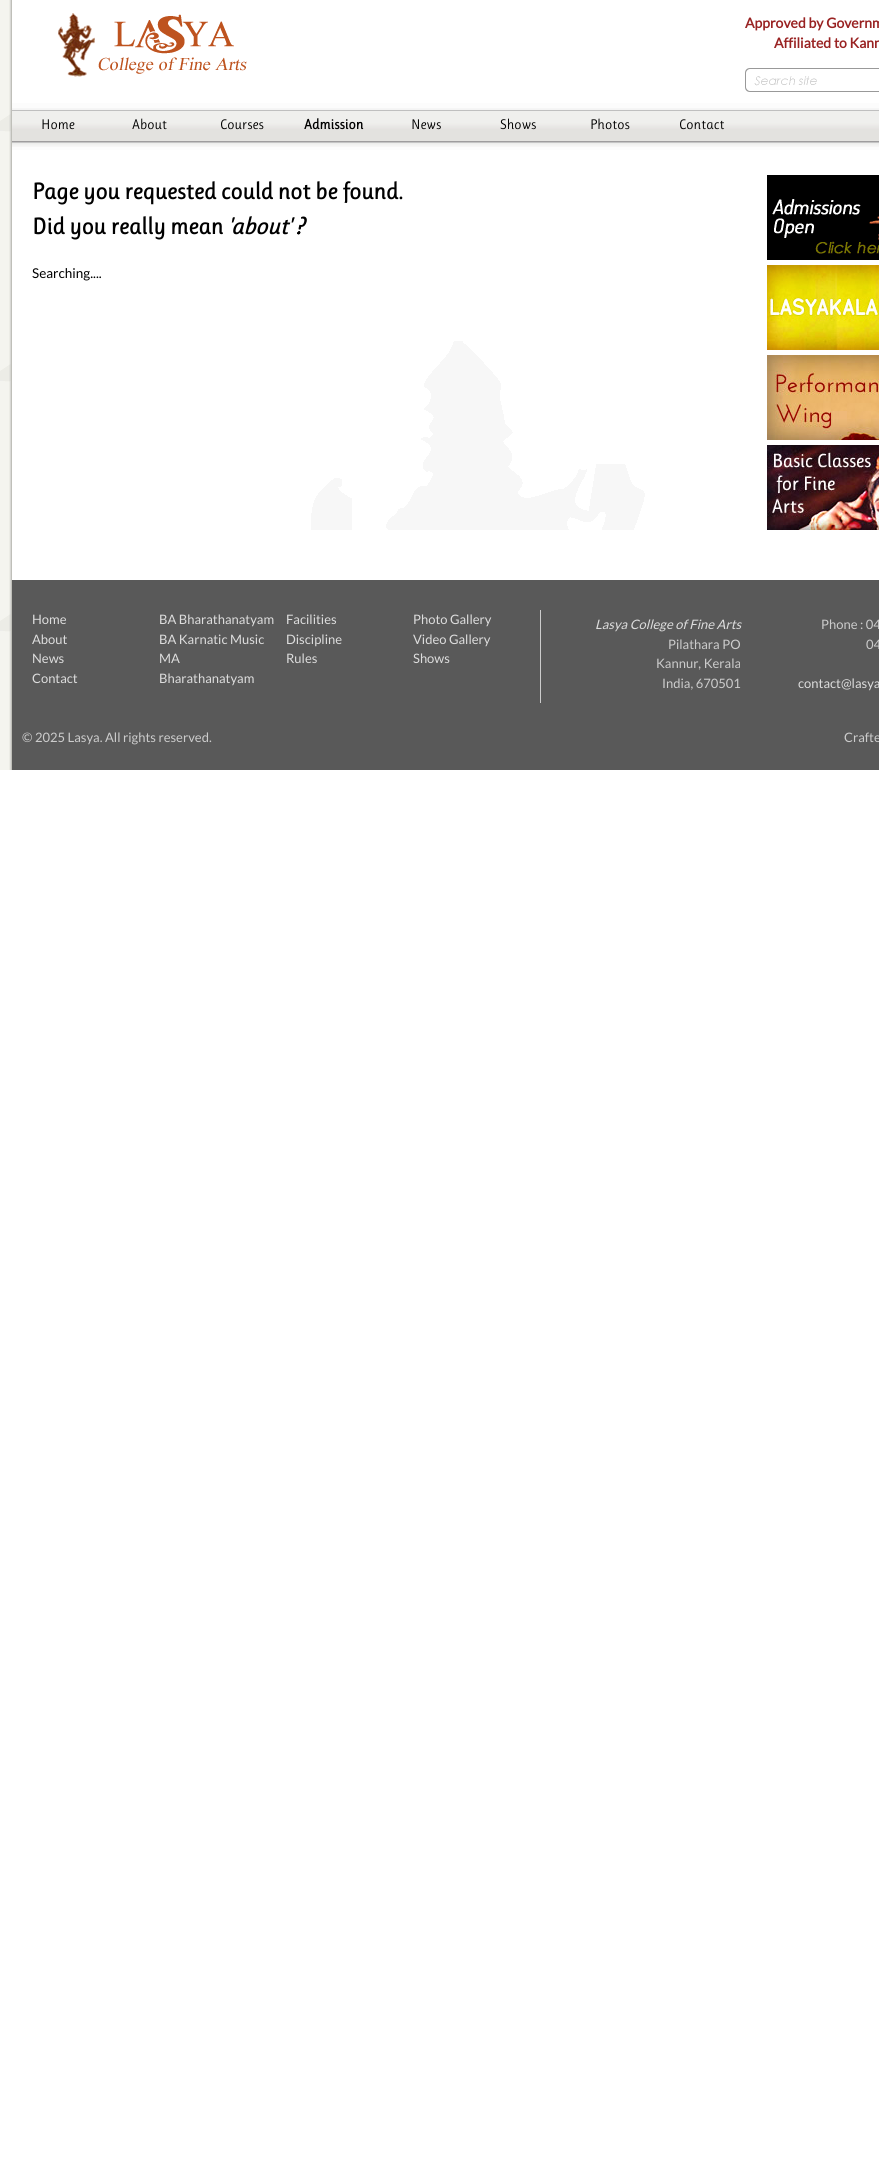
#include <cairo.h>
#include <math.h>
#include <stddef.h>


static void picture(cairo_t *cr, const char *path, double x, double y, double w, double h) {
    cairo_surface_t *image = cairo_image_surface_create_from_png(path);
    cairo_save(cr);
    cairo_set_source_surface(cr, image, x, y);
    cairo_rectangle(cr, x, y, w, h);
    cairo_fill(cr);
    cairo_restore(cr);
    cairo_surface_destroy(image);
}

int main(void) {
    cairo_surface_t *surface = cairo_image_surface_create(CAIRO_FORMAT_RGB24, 879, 2182);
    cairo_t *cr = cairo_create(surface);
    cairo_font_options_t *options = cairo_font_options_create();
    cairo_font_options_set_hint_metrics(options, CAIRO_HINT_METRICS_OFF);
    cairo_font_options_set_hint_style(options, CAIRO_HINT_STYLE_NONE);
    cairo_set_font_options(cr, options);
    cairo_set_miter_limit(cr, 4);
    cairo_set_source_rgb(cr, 1, 1, 1);
    cairo_paint(cr);
    picture(cr, "img1.png", 0, 0, 879, 770);
    picture(cr, "img2.png", 58, 13, 189, 64);
    cairo_select_font_face(cr, "Lato", CAIRO_FONT_SLANT_NORMAL, CAIRO_FONT_WEIGHT_BOLD);
    cairo_set_font_size(cr, 14);
    cairo_set_source_rgb(cr, 0.6, 0.133, 0.133);
    cairo_move_to(cr, 745, 28);
    cairo_show_text(cr, "Approved by Governm");
    cairo_move_to(cr, 774, 48);
    cairo_show_text(cr, "Affiliated to Kann");
    cairo_set_source_rgb(cr, 0.6, 0.6, 0.6);
    cairo_set_fill_rule(cr, CAIRO_FILL_RULE_EVEN_ODD);
    cairo_new_path(cr);
    cairo_move_to(cr, 750, 68);
    cairo_line_to(cr, 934, 68);
    cairo_line_to(cr, 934, 92);
    cairo_line_to(cr, 750, 92);
    cairo_curve_to(cr, 747, 92, 745, 90, 745, 87);
    cairo_line_to(cr, 745, 73);
    cairo_curve_to(cr, 745, 70, 747, 68, 750, 68);
    cairo_close_path(cr);
    cairo_move_to(cr, 750, 69);
    cairo_line_to(cr, 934, 69);
    cairo_line_to(cr, 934, 91);
    cairo_line_to(cr, 750, 91);
    cairo_curve_to(cr, 748, 91, 746, 89, 746, 87);
    cairo_line_to(cr, 746, 73);
    cairo_curve_to(cr, 746, 71, 748, 69, 750, 69);
    cairo_close_path(cr);
    cairo_fill(cr);
    picture(cr, "img3.png", 754, 76, 63, 10);
    cairo_set_source_rgb(cr, 0.988, 0.988, 0.988);
    cairo_rectangle(cr, 12, 103, 867, 47);
    cairo_fill(cr);
    picture(cr, "img4.png", 12, 108, 867, 39);
    cairo_select_font_face(cr, "Ruluko", CAIRO_FONT_SLANT_NORMAL, CAIRO_FONT_WEIGHT_NORMAL);
    cairo_set_source_rgb(cr, 0, 0, 0);
    cairo_move_to(cr, 41, 129);
    cairo_show_text(cr, "Home");
    cairo_move_to(cr, 132, 129);
    cairo_show_text(cr, "About");
    cairo_move_to(cr, 220, 129);
    cairo_show_text(cr, "Courses");
    cairo_select_font_face(cr, "Ruluko", CAIRO_FONT_SLANT_NORMAL, CAIRO_FONT_WEIGHT_BOLD);
    cairo_move_to(cr, 304, 129);
    cairo_show_text(cr, "Admission");
    cairo_select_font_face(cr, "Ruluko", CAIRO_FONT_SLANT_NORMAL, CAIRO_FONT_WEIGHT_NORMAL);
    cairo_move_to(cr, 411, 129);
    cairo_show_text(cr, "News");
    cairo_move_to(cr, 500, 129);
    cairo_show_text(cr, "Shows");
    cairo_move_to(cr, 590, 129);
    cairo_show_text(cr, "Photos");
    cairo_move_to(cr, 679, 129);
    cairo_show_text(cr, "Contact");
    picture(cr, "img5.png", 311, 341, 334, 189);
    cairo_select_font_face(cr, "Ruluko", CAIRO_FONT_SLANT_NORMAL, CAIRO_FONT_WEIGHT_BOLD);
    cairo_set_font_size(cr, 23);
    cairo_move_to(cr, 32, 199);
    cairo_show_text(cr, "Page you requested could not be found.");
    cairo_move_to(cr, 32, 234);
    cairo_show_text(cr, "Did you really mean");
    cairo_select_font_face(cr, "Ruluko", CAIRO_FONT_SLANT_ITALIC, CAIRO_FONT_WEIGHT_BOLD);
    cairo_move_to(cr, 228, 234);
    cairo_show_text(cr, "'about' ?");
    cairo_select_font_face(cr, "Lato", CAIRO_FONT_SLANT_NORMAL, CAIRO_FONT_WEIGHT_NORMAL);
    cairo_set_font_size(cr, 13.5);
    cairo_move_to(cr, 32, 278);
    cairo_show_text(cr, "Searching....");
    picture(cr, "img6.png", 767, 175, 112, 85);
    picture(cr, "img7.png", 767, 265, 112, 85);
    picture(cr, "img8.png", 767, 355, 112, 85);
    picture(cr, "img9.png", 767, 445, 112, 85);
    cairo_set_source_rgb(cr, 0.349, 0.349, 0.349);
    cairo_rectangle(cr, 12, 580, 867, 190);
    cairo_fill(cr);
    cairo_set_font_size(cr, 13);
    cairo_set_source_rgb(cr, 0.867, 0.867, 0.867);
    cairo_move_to(cr, 32, 624);
    cairo_show_text(cr, "Home");
    cairo_move_to(cr, 32, 644);
    cairo_show_text(cr, "About");
    cairo_move_to(cr, 32, 663);
    cairo_show_text(cr, "News");
    cairo_move_to(cr, 32, 683);
    cairo_show_text(cr, "Contact");
    cairo_move_to(cr, 159, 624);
    cairo_show_text(cr, "BA Bharathanatyam");
    cairo_move_to(cr, 159, 644);
    cairo_show_text(cr, "BA Karnatic Music");
    cairo_move_to(cr, 159, 663);
    cairo_show_text(cr, "MA");
    cairo_move_to(cr, 159, 683);
    cairo_show_text(cr, "Bharathanatyam");
    cairo_move_to(cr, 286, 624);
    cairo_show_text(cr, "Facilities");
    cairo_move_to(cr, 286, 644);
    cairo_show_text(cr, "Discipline");
    cairo_move_to(cr, 286, 663);
    cairo_show_text(cr, "Rules");
    cairo_move_to(cr, 413, 624);
    cairo_show_text(cr, "Photo Gallery");
    cairo_move_to(cr, 413, 644);
    cairo_show_text(cr, "Video Gallery");
    cairo_move_to(cr, 413, 663);
    cairo_show_text(cr, "Shows");
    cairo_set_source_rgb(cr, 0.8, 0.8, 0.8);
    cairo_rectangle(cr, 540, 610, 1, 93);
    cairo_fill(cr);
    cairo_select_font_face(cr, "Lato", CAIRO_FONT_SLANT_ITALIC, CAIRO_FONT_WEIGHT_NORMAL);
    cairo_set_source_rgb(cr, 0.867, 0.867, 0.867);
    cairo_move_to(cr, 595, 629);
    cairo_show_text(cr, "Lasya College of Fine Arts");
    cairo_select_font_face(cr, "Lato", CAIRO_FONT_SLANT_NORMAL, CAIRO_FONT_WEIGHT_NORMAL);
    cairo_set_source_rgb(cr, 0.8, 0.8, 0.8);
    cairo_move_to(cr, 668, 649);
    cairo_show_text(cr, "Pilathara PO");
    cairo_move_to(cr, 656, 668);
    cairo_show_text(cr, "Kannur, Kerala");
    cairo_move_to(cr, 662, 688);
    cairo_show_text(cr, "India, 670501");
    cairo_move_to(cr, 821, 629);
    cairo_show_text(cr, "Phone : 04");
    cairo_move_to(cr, 866, 649);
    cairo_show_text(cr, "04");
    cairo_set_source_rgb(cr, 0.867, 0.867, 0.867);
    cairo_move_to(cr, 798, 688);
    cairo_show_text(cr, "contact@lasya");
    cairo_set_source_rgb(cr, 0.8, 0.8, 0.8);
    cairo_move_to(cr, 22, 742);
    cairo_show_text(cr, "© 2025 Lasya. All rights reserved.");
    cairo_move_to(cr, 844, 742);
    cairo_show_text(cr, "Crafte");
    cairo_surface_write_to_png(surface, "page.png");
    cairo_font_options_destroy(options);
    cairo_destroy(cr);
    cairo_surface_destroy(surface);
    return 0;
}
